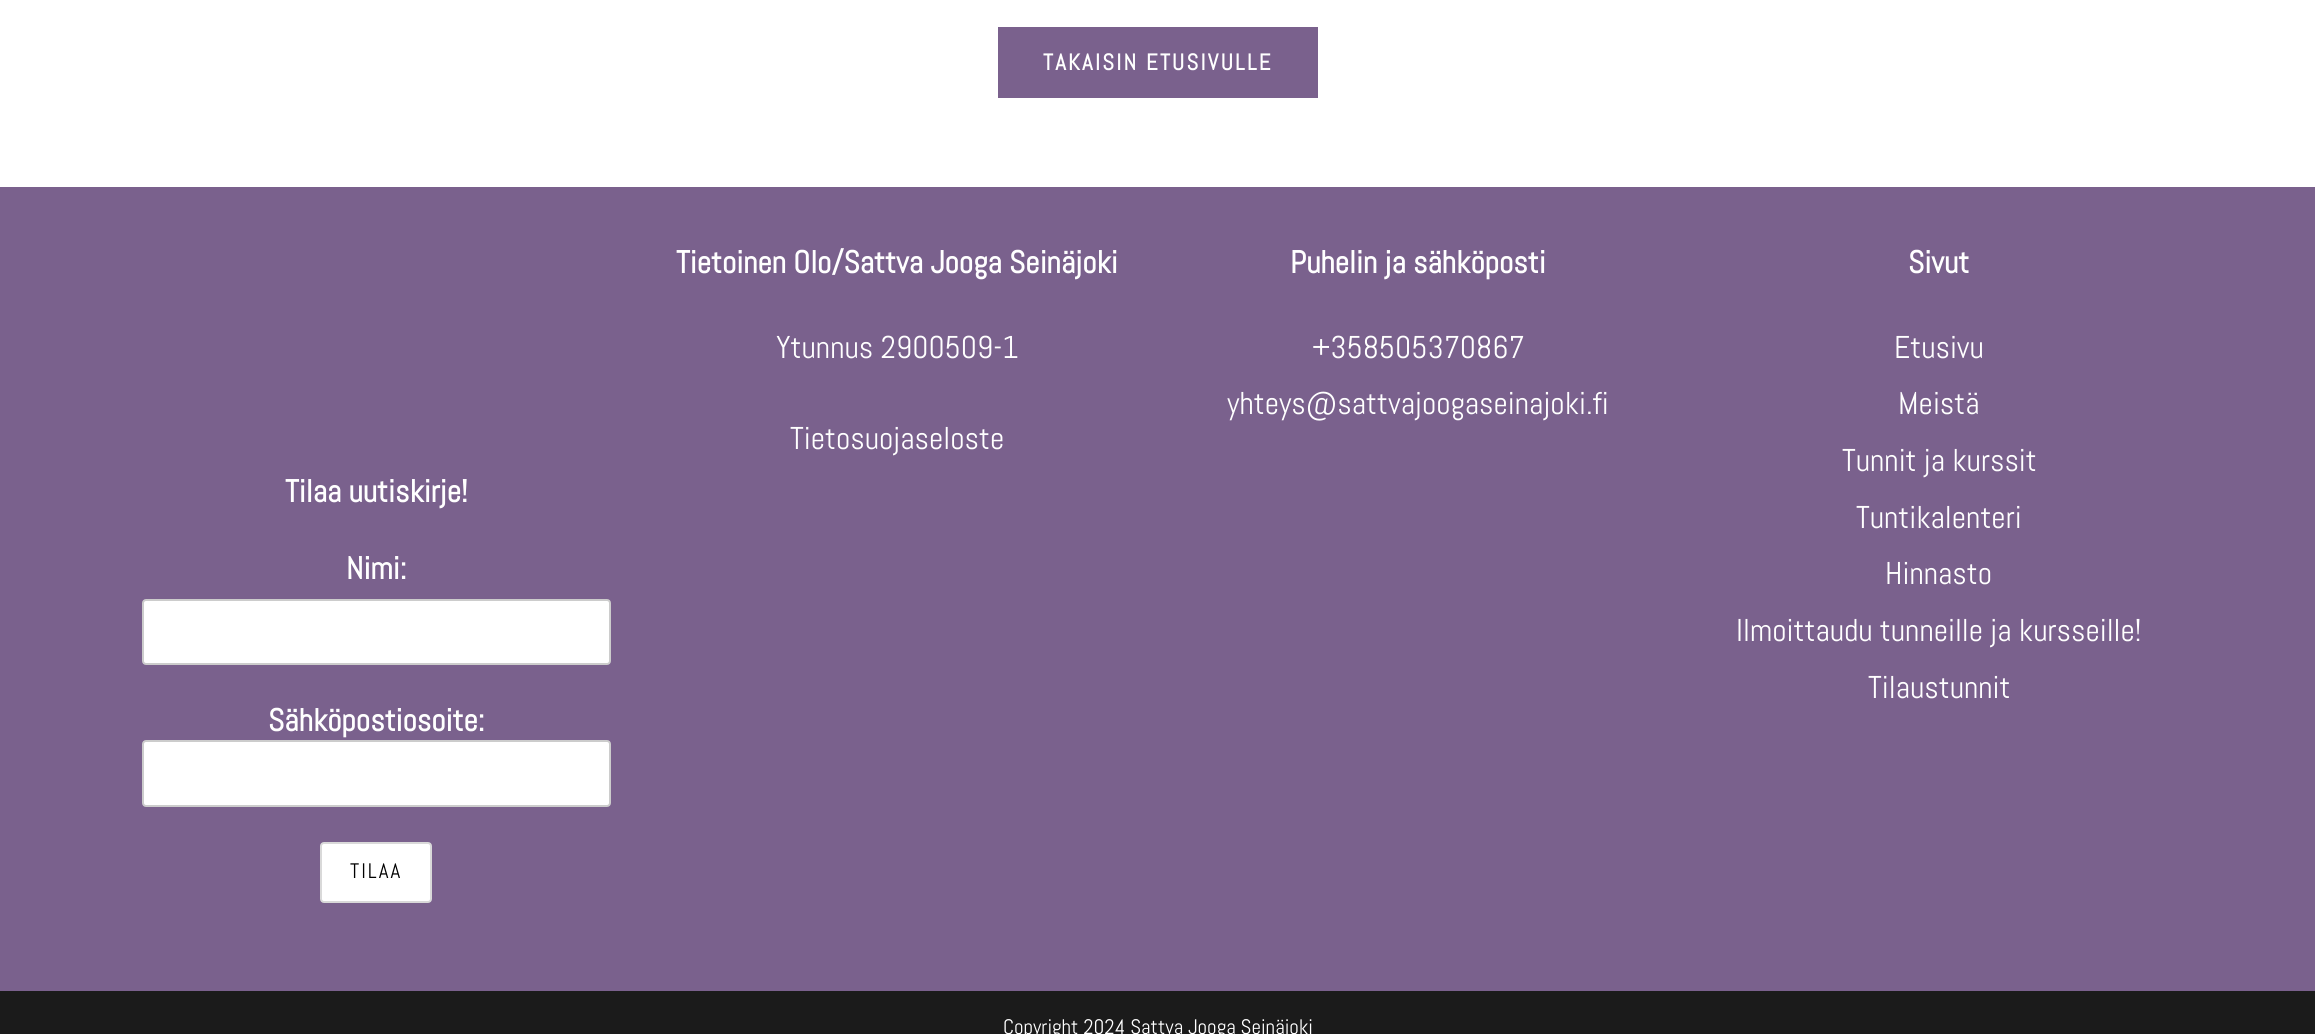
#include <cairo.h>
#include <math.h>
#include <stddef.h>


static void spaced_text(cairo_t *cr, double x, double y, const char *s, double letter, double word) {
    cairo_move_to(cr, x, y);
    while (*s) {
        char ch[5] = {0};
        int n = 0;
        do ch[n++] = *s++; while ((*s & 0xC0) == 0x80);
        cairo_show_text(cr, ch);
        cairo_rel_move_to(cr, letter + word * (*ch == ' '), 0);
    }
}

static void round_rect(cairo_t *cr, double x, double y, double w, double h, double r) {
    cairo_new_sub_path(cr);
    cairo_arc(cr, x + w - r, y + h - r, r, 0, M_PI / 2);
    cairo_arc(cr, x + r, y + h - r, r, M_PI / 2, M_PI);
    cairo_arc(cr, x + r, y + r, r, M_PI, 1.5 * M_PI);
    cairo_arc(cr, x + w - r, y + r, r, 1.5 * M_PI, 2 * M_PI);
    cairo_close_path(cr);
}

int main(void) {
    cairo_surface_t *surface = cairo_image_surface_create(CAIRO_FORMAT_RGB24, 2315, 1034);
    cairo_t *cr = cairo_create(surface);
    cairo_font_options_t *options = cairo_font_options_create();
    cairo_font_options_set_hint_metrics(options, CAIRO_HINT_METRICS_OFF);
    cairo_font_options_set_hint_style(options, CAIRO_HINT_STYLE_NONE);
    cairo_set_font_options(cr, options);
    cairo_set_miter_limit(cr, 4);
    cairo_set_source_rgb(cr, 1, 1, 1);
    cairo_paint(cr);
    cairo_set_source_rgb(cr, 0.478, 0.38, 0.553);
    cairo_rectangle(cr, 998, 27, 320, 71);
    cairo_fill(cr);
    cairo_select_font_face(cr, "Abel", CAIRO_FONT_SLANT_NORMAL, CAIRO_FONT_WEIGHT_BOLD);
    cairo_set_font_size(cr, 22.75);
    cairo_set_source_rgb(cr, 1, 1, 1);
    spaced_text(cr, 1043, 70, "TAKAISIN ETUSIVULLE", 2.25, 0);
    cairo_set_source_rgb(cr, 0.478, 0.38, 0.553);
    cairo_rectangle(cr, 0, 187, 2315, 804);
    cairo_fill(cr);
    cairo_set_font_size(cr, 31.5);
    cairo_set_source_rgb(cr, 1, 1, 1);
    cairo_move_to(cr, 285, 502);
    cairo_show_text(cr, "Tilaa uutiskirje!");
    cairo_move_to(cr, 346, 579);
    cairo_show_text(cr, "Nimi:");
    round_rect(cr, 143, 600, 467, 64, 3);
    cairo_fill_preserve(cr);
    cairo_set_source_rgb(cr, 0.8, 0.8, 0.8);
    cairo_stroke(cr);
    cairo_set_source_rgb(cr, 1, 1, 1);
    cairo_move_to(cr, 268, 731);
    cairo_show_text(cr, "Sähköpostiosoite:");
    round_rect(cr, 143, 741, 467, 65, 3);
    cairo_fill_preserve(cr);
    cairo_set_source_rgb(cr, 0.8, 0.8, 0.8);
    cairo_stroke(cr);
    cairo_set_source_rgb(cr, 1, 1, 1);
    round_rect(cr, 321, 843, 110, 59, 3);
    cairo_fill_preserve(cr);
    cairo_set_source_rgb(cr, 0.851, 0.851, 0.851);
    cairo_stroke(cr);
    cairo_select_font_face(cr, "Abel", CAIRO_FONT_SLANT_NORMAL, CAIRO_FONT_WEIGHT_NORMAL);
    cairo_set_font_size(cr, 21);
    cairo_set_source_rgb(cr, 0, 0, 0);
    spaced_text(cr, 350, 878, "TILAA", 2, 0);
    cairo_select_font_face(cr, "Abel", CAIRO_FONT_SLANT_NORMAL, CAIRO_FONT_WEIGHT_BOLD);
    cairo_set_font_size(cr, 31.5);
    cairo_set_source_rgb(cr, 1, 1, 1);
    cairo_move_to(cr, 676, 273);
    cairo_show_text(cr, "Tietoinen Olo/Sattva Jooga Seinäjoki");
    cairo_select_font_face(cr, "Abel", CAIRO_FONT_SLANT_NORMAL, CAIRO_FONT_WEIGHT_NORMAL);
    cairo_move_to(cr, 776, 358);
    cairo_show_text(cr, "Ytunnus 2900509-1");
    cairo_move_to(cr, 790, 449);
    cairo_show_text(cr, "Tietosuojaseloste");
    cairo_select_font_face(cr, "Abel", CAIRO_FONT_SLANT_NORMAL, CAIRO_FONT_WEIGHT_BOLD);
    cairo_move_to(cr, 1290, 273);
    cairo_show_text(cr, "Puhelin ja sähköposti");
    cairo_select_font_face(cr, "Abel", CAIRO_FONT_SLANT_NORMAL, CAIRO_FONT_WEIGHT_NORMAL);
    cairo_move_to(cr, 1312, 358);
    cairo_show_text(cr, "+358505370867");
    cairo_move_to(cr, 1227, 414);
    cairo_show_text(cr, "yhteys@sattvajoogaseinajoki.fi");
    cairo_select_font_face(cr, "Abel", CAIRO_FONT_SLANT_NORMAL, CAIRO_FONT_WEIGHT_BOLD);
    cairo_move_to(cr, 1908, 273);
    cairo_show_text(cr, "Sivut");
    cairo_select_font_face(cr, "Abel", CAIRO_FONT_SLANT_NORMAL, CAIRO_FONT_WEIGHT_NORMAL);
    cairo_move_to(cr, 1894, 358);
    cairo_show_text(cr, "Etusivu");
    cairo_move_to(cr, 1898, 414);
    cairo_show_text(cr, "Meistä");
    cairo_move_to(cr, 1842, 471);
    cairo_show_text(cr, "Tunnit ja kurssit");
    cairo_move_to(cr, 1856, 528);
    cairo_show_text(cr, "Tuntikalenteri");
    cairo_move_to(cr, 1885, 584);
    cairo_show_text(cr, "Hinnasto");
    cairo_move_to(cr, 1736, 641);
    cairo_show_text(cr, "Ilmoittaudu tunneille ja kursseille!");
    cairo_move_to(cr, 1868, 698);
    cairo_show_text(cr, "Tilaustunnit");
    cairo_set_source_rgb(cr, 0.106, 0.106, 0.106);
    cairo_rectangle(cr, 0, 991, 2315, 43);
    cairo_fill(cr);
    cairo_set_font_size(cr, 21);
    cairo_set_source_rgb(cr, 1, 1, 1);
    cairo_move_to(cr, 1003, 1034);
    cairo_show_text(cr, "Copyright 2024 Sattva Jooga Seinäjoki");
    cairo_surface_write_to_png(surface, "page.png");
    cairo_font_options_destroy(options);
    cairo_destroy(cr);
    cairo_surface_destroy(surface);
    return 0;
}
